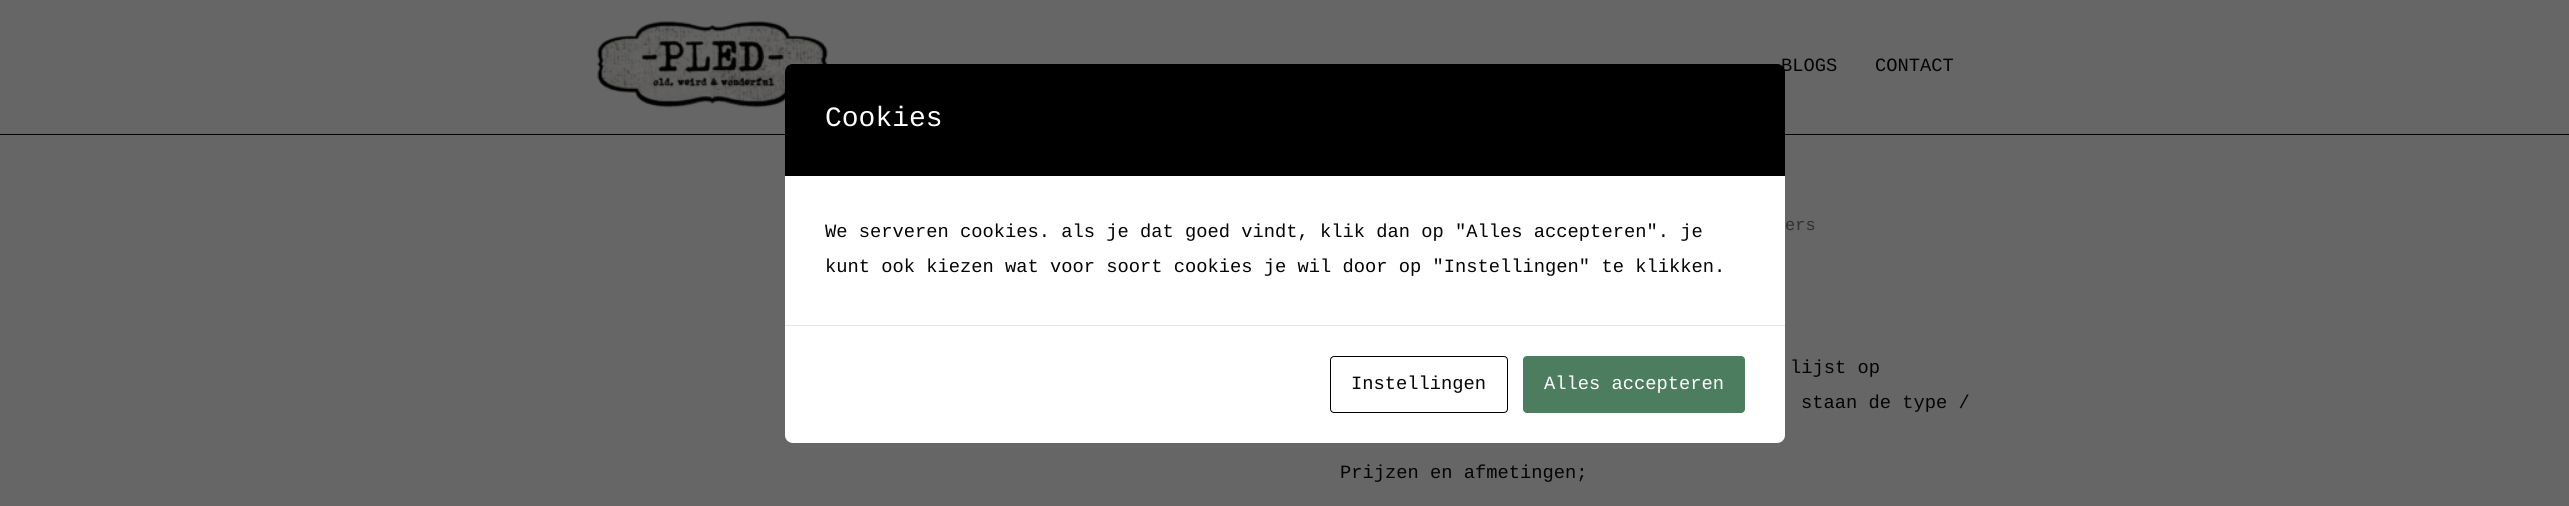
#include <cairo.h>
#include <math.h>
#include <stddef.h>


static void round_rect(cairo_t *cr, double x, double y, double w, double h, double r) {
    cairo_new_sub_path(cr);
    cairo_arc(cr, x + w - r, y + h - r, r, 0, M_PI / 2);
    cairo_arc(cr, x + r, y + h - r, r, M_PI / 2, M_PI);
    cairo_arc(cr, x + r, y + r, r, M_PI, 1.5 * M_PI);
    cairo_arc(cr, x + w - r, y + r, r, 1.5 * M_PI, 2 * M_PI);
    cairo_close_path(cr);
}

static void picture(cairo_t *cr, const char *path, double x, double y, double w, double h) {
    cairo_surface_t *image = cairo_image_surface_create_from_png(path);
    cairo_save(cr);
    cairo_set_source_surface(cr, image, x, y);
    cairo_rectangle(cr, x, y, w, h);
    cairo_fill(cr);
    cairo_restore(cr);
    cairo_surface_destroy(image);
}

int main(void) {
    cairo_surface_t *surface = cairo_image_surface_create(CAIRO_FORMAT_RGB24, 2569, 506);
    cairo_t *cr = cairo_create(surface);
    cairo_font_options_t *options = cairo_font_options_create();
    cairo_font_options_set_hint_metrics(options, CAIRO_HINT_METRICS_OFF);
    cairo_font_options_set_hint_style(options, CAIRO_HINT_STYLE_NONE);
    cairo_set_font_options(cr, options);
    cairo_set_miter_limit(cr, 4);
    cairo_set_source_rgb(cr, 0.4, 0.4, 0.4);
    cairo_paint(cr);
    cairo_set_source_rgb(cr, 0.016, 0.016, 0.016);
    cairo_rectangle(cr, 0, 134, 2569, 1);
    cairo_fill(cr);
    picture(cr, "img1.png", 597, 21, 231, 87);
    picture(cr, "img2.png", 1343, 63, 10, 1);
    cairo_select_font_face(cr, "Liberation Mono", CAIRO_FONT_SLANT_NORMAL, CAIRO_FONT_WEIGHT_NORMAL);
    cairo_set_font_size(cr, 18.75);
    cairo_move_to(cr, 1781, 71);
    cairo_show_text(cr, "BLOGS");
    cairo_move_to(cr, 1875, 71);
    cairo_show_text(cr, "CONTACT");
    cairo_set_font_size(cr, 17);
    cairo_set_source_rgb(cr, 0.188, 0.188, 0.188);
    cairo_move_to(cr, 1785, 230);
    cairo_show_text(cr, "ers");
    cairo_set_font_size(cr, 18.75);
    cairo_set_source_rgb(cr, 0.016, 0.016, 0.016);
    cairo_move_to(cr, 1790, 373);
    cairo_show_text(cr, "lijst op");
    cairo_move_to(cr, 1801, 408);
    cairo_show_text(cr, "staan de type /");
    cairo_move_to(cr, 1340, 478);
    cairo_show_text(cr, "Prijzen en afmetingen;");
    cairo_set_source_rgb(cr, 0, 0, 0);
    cairo_new_path(cr);
    cairo_move_to(cr, 793, 64);
    cairo_line_to(cr, 1777, 64);
    cairo_curve_to(cr, 1781.5, 64, 1785, 67.5, 1785, 72);
    cairo_line_to(cr, 1785, 176);
    cairo_line_to(cr, 785, 176);
    cairo_line_to(cr, 785, 72);
    cairo_curve_to(cr, 785, 67.5, 788.5, 64, 793, 64);
    cairo_close_path(cr);
    cairo_fill(cr);
    cairo_set_font_size(cr, 28);
    cairo_set_source_rgb(cr, 1, 1, 1);
    cairo_move_to(cr, 825, 126);
    cairo_show_text(cr, "Cookies");
    cairo_rectangle(cr, 785, 176, 1000, 149);
    cairo_fill(cr);
    cairo_set_font_size(cr, 18.75);
    cairo_set_source_rgb(cr, 0.016, 0.016, 0.016);
    cairo_move_to(cr, 825, 237);
    cairo_show_text(cr, "We serveren cookies. als je dat goed vindt, klik dan op \"Alles accepteren\". je");
    cairo_move_to(cr, 825, 272);
    cairo_show_text(cr, "kunt ook kiezen wat voor soort cookies je wil door op \"Instellingen\" te klikken.");
    cairo_set_source_rgb(cr, 1, 1, 1);
    cairo_new_path(cr);
    cairo_move_to(cr, 785, 325);
    cairo_line_to(cr, 1785, 325);
    cairo_line_to(cr, 1785, 435);
    cairo_curve_to(cr, 1785, 439.5, 1781.5, 443, 1777, 443);
    cairo_line_to(cr, 793, 443);
    cairo_curve_to(cr, 788.5, 443, 785, 439.5, 785, 435);
    cairo_close_path(cr);
    cairo_fill(cr);
    cairo_set_source_rgb(cr, 0.902, 0.902, 0.902);
    cairo_rectangle(cr, 785, 325, 1000, 1);
    cairo_fill(cr);
    round_rect(cr, 1330.5, 356.5, 177, 56, 3.5);
    cairo_set_source_rgb(cr, 0, 0, 0);
    cairo_set_line_width(cr, 1);
    cairo_stroke(cr);
    cairo_set_source_rgb(cr, 0.016, 0.016, 0.016);
    cairo_move_to(cr, 1351, 389);
    cairo_show_text(cr, "Instellingen");
    cairo_set_source_rgb(cr, 0.294, 0.49, 0.369);
    round_rect(cr, 1523.5, 356.5, 221, 56, 3.5);
    cairo_fill_preserve(cr);
    cairo_stroke(cr);
    cairo_set_source_rgb(cr, 1, 1, 1);
    cairo_move_to(cr, 1544, 389);
    cairo_show_text(cr, "Alles accepteren");
    cairo_surface_write_to_png(surface, "page.png");
    cairo_font_options_destroy(options);
    cairo_destroy(cr);
    cairo_surface_destroy(surface);
    return 0;
}
